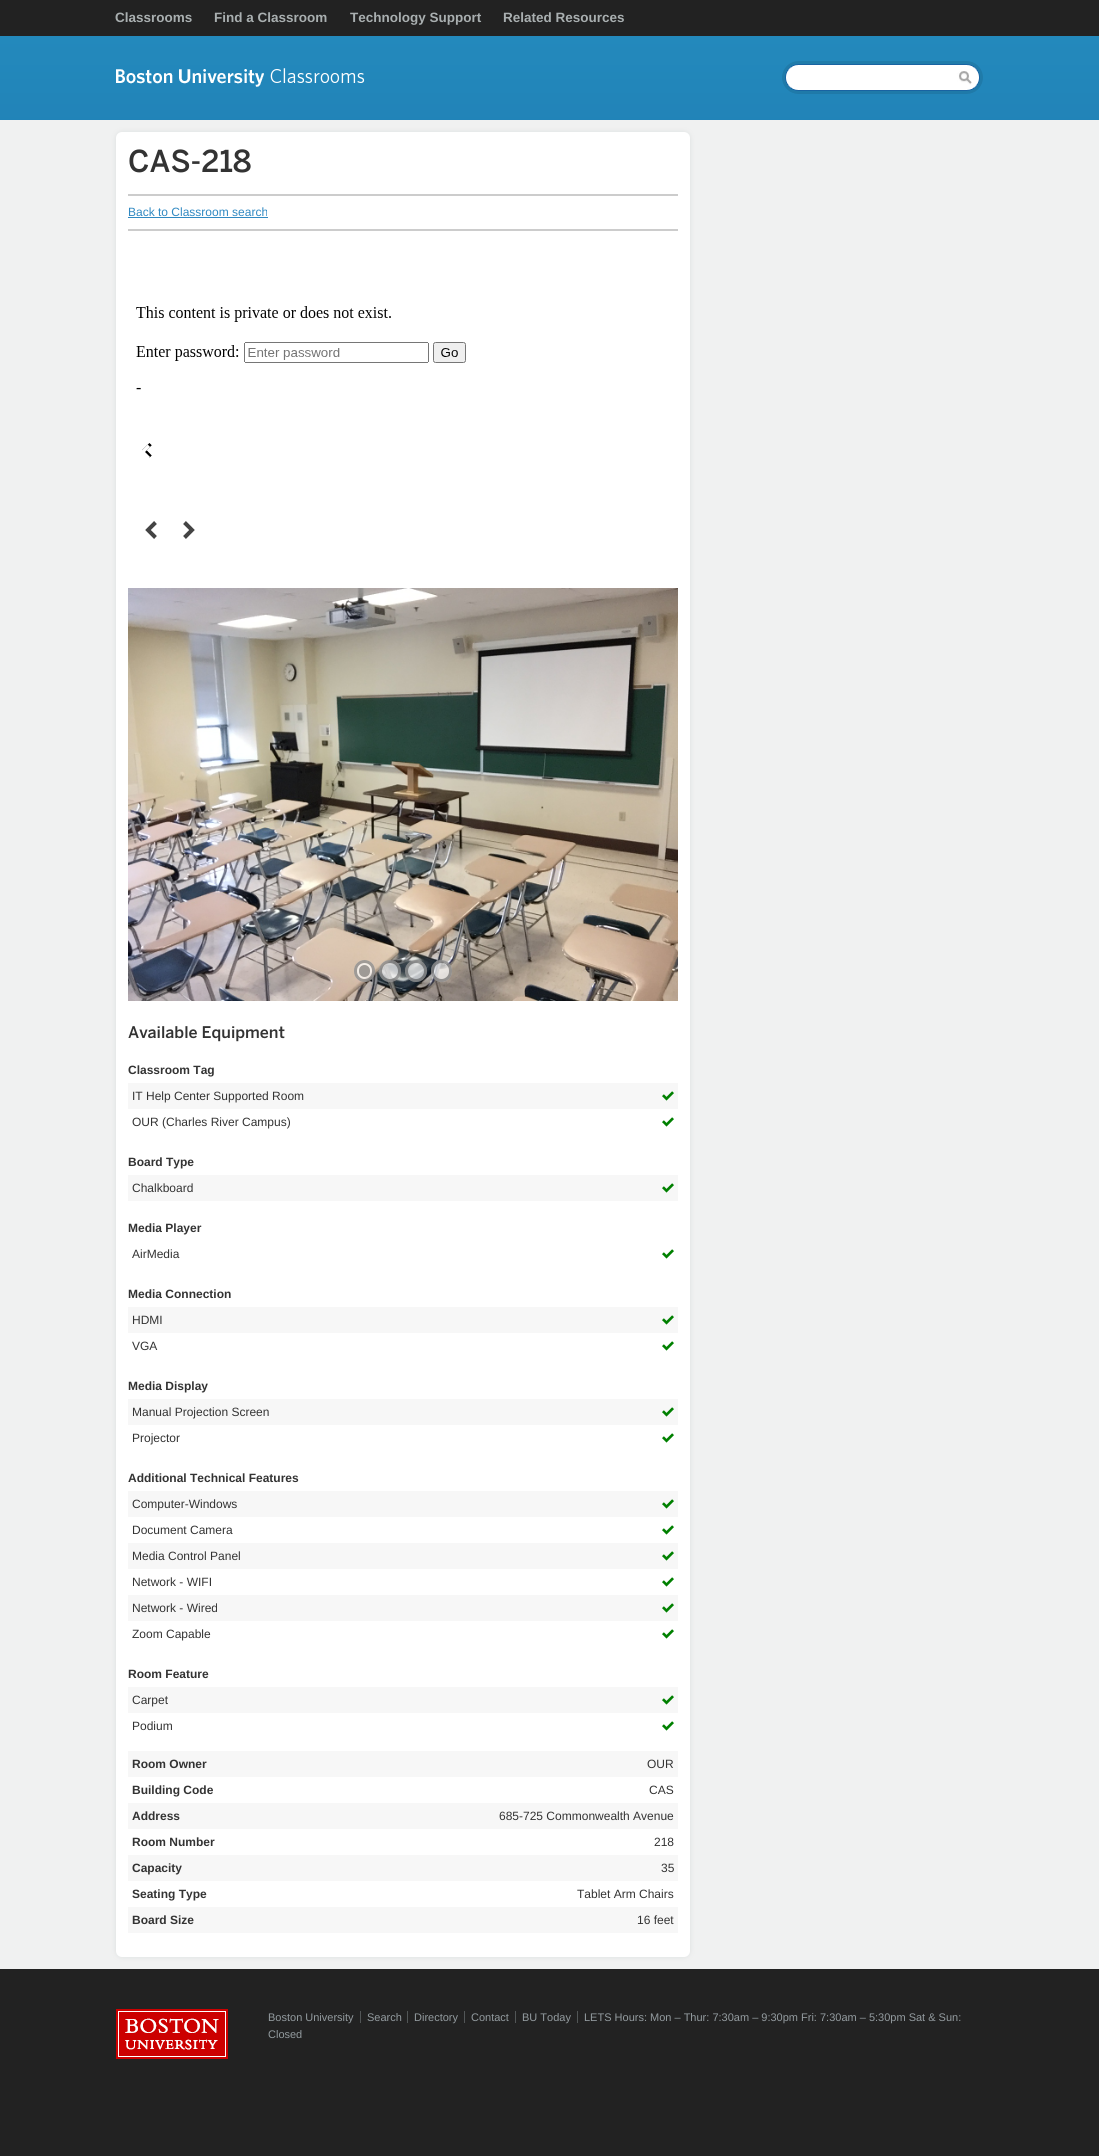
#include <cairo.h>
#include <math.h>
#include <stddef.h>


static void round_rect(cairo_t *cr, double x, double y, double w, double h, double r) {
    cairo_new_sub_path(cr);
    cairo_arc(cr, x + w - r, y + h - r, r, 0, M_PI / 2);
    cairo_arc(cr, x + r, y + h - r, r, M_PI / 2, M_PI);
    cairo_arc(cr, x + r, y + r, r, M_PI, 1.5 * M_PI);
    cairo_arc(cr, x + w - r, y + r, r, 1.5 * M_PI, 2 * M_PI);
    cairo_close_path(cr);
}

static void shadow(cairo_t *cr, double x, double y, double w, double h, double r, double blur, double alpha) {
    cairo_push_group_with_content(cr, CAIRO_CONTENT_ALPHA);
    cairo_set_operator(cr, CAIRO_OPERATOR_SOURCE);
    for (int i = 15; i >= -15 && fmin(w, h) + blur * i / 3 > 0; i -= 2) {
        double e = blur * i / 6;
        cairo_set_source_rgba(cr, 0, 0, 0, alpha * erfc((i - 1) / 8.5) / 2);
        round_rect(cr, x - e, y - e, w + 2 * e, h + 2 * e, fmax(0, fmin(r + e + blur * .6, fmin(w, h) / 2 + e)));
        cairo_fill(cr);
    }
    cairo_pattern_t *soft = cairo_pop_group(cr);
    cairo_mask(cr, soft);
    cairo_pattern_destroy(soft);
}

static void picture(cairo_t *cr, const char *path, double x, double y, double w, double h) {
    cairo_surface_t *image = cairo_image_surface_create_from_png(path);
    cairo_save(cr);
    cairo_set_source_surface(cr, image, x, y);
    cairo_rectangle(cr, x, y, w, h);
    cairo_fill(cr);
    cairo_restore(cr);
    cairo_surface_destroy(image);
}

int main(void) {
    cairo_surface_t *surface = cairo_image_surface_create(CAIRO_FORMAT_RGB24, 1099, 2156);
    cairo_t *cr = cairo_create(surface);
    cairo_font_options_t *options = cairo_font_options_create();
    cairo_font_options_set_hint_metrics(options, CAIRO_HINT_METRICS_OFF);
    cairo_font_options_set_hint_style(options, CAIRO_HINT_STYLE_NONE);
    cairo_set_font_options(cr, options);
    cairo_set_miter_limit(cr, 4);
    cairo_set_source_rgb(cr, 0.133, 0.133, 0.133);
    cairo_paint(cr);
    cairo_set_source_rgb(cr, 0.941, 0.945, 0.945);
    cairo_rectangle(cr, 0, 120, 1099, 1849);
    cairo_fill(cr);
    picture(cr, "img1.png", 0, 0, 1099, 120);
    cairo_select_font_face(cr, "Liberation Sans", CAIRO_FONT_SLANT_NORMAL, CAIRO_FONT_WEIGHT_BOLD);
    cairo_set_font_size(cr, 13.5);
    cairo_set_source_rgb(cr, 0.663, 0.686, 0.69);
    cairo_move_to(cr, 115, 22);
    cairo_show_text(cr, "Classrooms");
    cairo_move_to(cr, 214, 22);
    cairo_show_text(cr, "Find a Classroom");
    cairo_move_to(cr, 350, 22);
    cairo_show_text(cr, "Technology Support");
    cairo_move_to(cr, 503, 22);
    cairo_show_text(cr, "Related Resources");
    picture(cr, "img2.png", 116, 68, 249, 19);
    picture(cr, "img3.png", 782, 61, 201, 33);
    cairo_set_source_rgb(cr, 0.863, 0.875, 0.875);
    shadow(cr, 116, 132, 574, 1825, 6, 2.5, 1);
    cairo_set_source_rgb(cr, 1, 1, 1);
    round_rect(cr, 116, 132, 574, 1825, 6);
    cairo_fill(cr);
    cairo_select_font_face(cr, "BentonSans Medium", CAIRO_FONT_SLANT_NORMAL, CAIRO_FONT_WEIGHT_NORMAL);
    cairo_set_font_size(cr, 30);
    cairo_set_source_rgb(cr, 0.2, 0.2, 0.2);
    cairo_move_to(cr, 128, 172);
    cairo_show_text(cr, "CAS-218");
    cairo_set_source_rgb(cr, 0.8, 0.8, 0.8);
    cairo_rectangle(cr, 128, 194, 550, 2);
    cairo_fill(cr);
    cairo_rectangle(cr, 128, 229, 550, 2);
    cairo_fill(cr);
    cairo_select_font_face(cr, "Liberation Sans", CAIRO_FONT_SLANT_NORMAL, CAIRO_FONT_WEIGHT_NORMAL);
    cairo_set_font_size(cr, 12);
    cairo_set_source_rgb(cr, 0.188, 0.537, 0.761);
    cairo_move_to(cr, 128, 216);
    cairo_show_text(cr, "Back to Classroom search");
    cairo_rectangle(cr, 128, 217, 140, 1);
    cairo_fill(cr);
    picture(cr, "img4.png", 136, 306, 330, 233);
    picture(cr, "img5.png", 128, 588, 550, 413);
    cairo_set_source_rgba(cr, 1, 1, 1, 0.7);
    round_rect(cr, 354, 960, 21, 22, 10.5);
    cairo_fill(cr);
    round_rect(cr, 355.5, 961.5, 18, 19, 9);
    cairo_set_source_rgba(cr, 0, 0, 0, 0.35);
    cairo_set_line_width(cr, 3);
    cairo_stroke(cr);
    round_rect(cr, 359, 965, 11, 12, 5.5);
    cairo_fill(cr);
    cairo_set_source_rgba(cr, 1, 1, 1, 0.7);
    cairo_arc(cr, 390, 971, 11, 0, 2 * M_PI);
    cairo_fill(cr);
    cairo_arc(cr, 390, 971, 9.5, 0, 2 * M_PI);
    cairo_set_source_rgba(cr, 0, 0, 0, 0.35);
    cairo_stroke(cr);
    cairo_set_source_rgba(cr, 1, 1, 1, 0.7);
    cairo_arc(cr, 416, 971, 11, 0, 2 * M_PI);
    cairo_fill(cr);
    cairo_arc(cr, 416, 971, 9.5, 0, 2 * M_PI);
    cairo_set_source_rgba(cr, 0, 0, 0, 0.35);
    cairo_stroke(cr);
    cairo_set_source_rgba(cr, 1, 1, 1, 0.7);
    round_rect(cr, 431, 960, 21, 22, 10.5);
    cairo_fill(cr);
    round_rect(cr, 432.5, 961.5, 18, 19, 9);
    cairo_set_source_rgba(cr, 0, 0, 0, 0.35);
    cairo_stroke(cr);
    cairo_select_font_face(cr, "BentonSans Medium", CAIRO_FONT_SLANT_NORMAL, CAIRO_FONT_WEIGHT_NORMAL);
    cairo_set_font_size(cr, 16);
    cairo_set_source_rgb(cr, 0.2, 0.2, 0.2);
    cairo_move_to(cr, 128, 1038);
    cairo_show_text(cr, "Available Equipment");
    cairo_select_font_face(cr, "Liberation Sans", CAIRO_FONT_SLANT_NORMAL, CAIRO_FONT_WEIGHT_BOLD);
    cairo_set_font_size(cr, 12);
    cairo_move_to(cr, 128, 1074);
    cairo_show_text(cr, "Classroom Tag");
    cairo_set_source_rgb(cr, 0.965, 0.965, 0.965);
    cairo_rectangle(cr, 128, 1083, 550, 26);
    cairo_fill(cr);
    cairo_select_font_face(cr, "Liberation Sans", CAIRO_FONT_SLANT_NORMAL, CAIRO_FONT_WEIGHT_NORMAL);
    cairo_set_source_rgb(cr, 0.2, 0.2, 0.2);
    cairo_move_to(cr, 132, 1100);
    cairo_show_text(cr, "IT Help Center Supported Room");
    picture(cr, "img6.png", 662, 1091, 12, 10);
    cairo_move_to(cr, 132, 1126);
    cairo_show_text(cr, "OUR (Charles River Campus)");
    picture(cr, "img7.png", 662, 1117, 12, 10);
    cairo_select_font_face(cr, "Liberation Sans", CAIRO_FONT_SLANT_NORMAL, CAIRO_FONT_WEIGHT_BOLD);
    cairo_move_to(cr, 128, 1166);
    cairo_show_text(cr, "Board Type");
    cairo_set_source_rgb(cr, 0.965, 0.965, 0.965);
    cairo_rectangle(cr, 128, 1175, 550, 26);
    cairo_fill(cr);
    cairo_select_font_face(cr, "Liberation Sans", CAIRO_FONT_SLANT_NORMAL, CAIRO_FONT_WEIGHT_NORMAL);
    cairo_set_source_rgb(cr, 0.2, 0.2, 0.2);
    cairo_move_to(cr, 132, 1192);
    cairo_show_text(cr, "Chalkboard");
    picture(cr, "img6.png", 662, 1183, 12, 10);
    cairo_select_font_face(cr, "Liberation Sans", CAIRO_FONT_SLANT_NORMAL, CAIRO_FONT_WEIGHT_BOLD);
    cairo_move_to(cr, 128, 1232);
    cairo_show_text(cr, "Media Player");
    cairo_select_font_face(cr, "Liberation Sans", CAIRO_FONT_SLANT_NORMAL, CAIRO_FONT_WEIGHT_NORMAL);
    cairo_move_to(cr, 132, 1258);
    cairo_show_text(cr, "AirMedia");
    picture(cr, "img7.png", 662, 1249, 12, 10);
    cairo_select_font_face(cr, "Liberation Sans", CAIRO_FONT_SLANT_NORMAL, CAIRO_FONT_WEIGHT_BOLD);
    cairo_move_to(cr, 128, 1298);
    cairo_show_text(cr, "Media Connection");
    cairo_set_source_rgb(cr, 0.965, 0.965, 0.965);
    cairo_rectangle(cr, 128, 1307, 550, 26);
    cairo_fill(cr);
    cairo_select_font_face(cr, "Liberation Sans", CAIRO_FONT_SLANT_NORMAL, CAIRO_FONT_WEIGHT_NORMAL);
    cairo_set_source_rgb(cr, 0.2, 0.2, 0.2);
    cairo_move_to(cr, 132, 1324);
    cairo_show_text(cr, "HDMI");
    picture(cr, "img6.png", 662, 1315, 12, 10);
    cairo_move_to(cr, 132, 1350);
    cairo_show_text(cr, "VGA");
    picture(cr, "img7.png", 662, 1341, 12, 10);
    cairo_select_font_face(cr, "Liberation Sans", CAIRO_FONT_SLANT_NORMAL, CAIRO_FONT_WEIGHT_BOLD);
    cairo_move_to(cr, 128, 1390);
    cairo_show_text(cr, "Media Display");
    cairo_set_source_rgb(cr, 0.965, 0.965, 0.965);
    cairo_rectangle(cr, 128, 1399, 550, 26);
    cairo_fill(cr);
    cairo_select_font_face(cr, "Liberation Sans", CAIRO_FONT_SLANT_NORMAL, CAIRO_FONT_WEIGHT_NORMAL);
    cairo_set_source_rgb(cr, 0.2, 0.2, 0.2);
    cairo_move_to(cr, 132, 1416);
    cairo_show_text(cr, "Manual Projection Screen");
    picture(cr, "img6.png", 662, 1407, 12, 10);
    cairo_move_to(cr, 132, 1442);
    cairo_show_text(cr, "Projector");
    picture(cr, "img7.png", 662, 1433, 12, 10);
    cairo_select_font_face(cr, "Liberation Sans", CAIRO_FONT_SLANT_NORMAL, CAIRO_FONT_WEIGHT_BOLD);
    cairo_move_to(cr, 128, 1482);
    cairo_show_text(cr, "Additional Technical Features");
    cairo_set_source_rgb(cr, 0.965, 0.965, 0.965);
    cairo_rectangle(cr, 128, 1491, 550, 26);
    cairo_fill(cr);
    cairo_select_font_face(cr, "Liberation Sans", CAIRO_FONT_SLANT_NORMAL, CAIRO_FONT_WEIGHT_NORMAL);
    cairo_set_source_rgb(cr, 0.2, 0.2, 0.2);
    cairo_move_to(cr, 132, 1508);
    cairo_show_text(cr, "Computer-Windows");
    picture(cr, "img6.png", 662, 1499, 12, 10);
    cairo_move_to(cr, 132, 1534);
    cairo_show_text(cr, "Document Camera");
    picture(cr, "img7.png", 662, 1525, 12, 10);
    cairo_set_source_rgb(cr, 0.965, 0.965, 0.965);
    cairo_rectangle(cr, 128, 1543, 550, 26);
    cairo_fill(cr);
    cairo_set_source_rgb(cr, 0.2, 0.2, 0.2);
    cairo_move_to(cr, 132, 1560);
    cairo_show_text(cr, "Media Control Panel");
    picture(cr, "img6.png", 662, 1551, 12, 10);
    cairo_move_to(cr, 132, 1586);
    cairo_show_text(cr, "Network - WIFI");
    picture(cr, "img7.png", 662, 1577, 12, 10);
    cairo_set_source_rgb(cr, 0.965, 0.965, 0.965);
    cairo_rectangle(cr, 128, 1595, 550, 26);
    cairo_fill(cr);
    cairo_set_source_rgb(cr, 0.2, 0.2, 0.2);
    cairo_move_to(cr, 132, 1612);
    cairo_show_text(cr, "Network - Wired");
    picture(cr, "img6.png", 662, 1603, 12, 10);
    cairo_move_to(cr, 132, 1638);
    cairo_show_text(cr, "Zoom Capable");
    picture(cr, "img7.png", 662, 1629, 12, 10);
    cairo_select_font_face(cr, "Liberation Sans", CAIRO_FONT_SLANT_NORMAL, CAIRO_FONT_WEIGHT_BOLD);
    cairo_move_to(cr, 128, 1678);
    cairo_show_text(cr, "Room Feature");
    cairo_set_source_rgb(cr, 0.965, 0.965, 0.965);
    cairo_rectangle(cr, 128, 1687, 550, 26);
    cairo_fill(cr);
    cairo_select_font_face(cr, "Liberation Sans", CAIRO_FONT_SLANT_NORMAL, CAIRO_FONT_WEIGHT_NORMAL);
    cairo_set_source_rgb(cr, 0.2, 0.2, 0.2);
    cairo_move_to(cr, 132, 1704);
    cairo_show_text(cr, "Carpet");
    picture(cr, "img6.png", 662, 1695, 12, 10);
    cairo_move_to(cr, 132, 1730);
    cairo_show_text(cr, "Podium");
    picture(cr, "img7.png", 662, 1721, 12, 10);
    cairo_set_source_rgb(cr, 0.965, 0.965, 0.965);
    cairo_rectangle(cr, 128, 1751, 550, 26);
    cairo_fill(cr);
    cairo_select_font_face(cr, "Liberation Sans", CAIRO_FONT_SLANT_NORMAL, CAIRO_FONT_WEIGHT_BOLD);
    cairo_set_source_rgb(cr, 0.2, 0.2, 0.2);
    cairo_move_to(cr, 132, 1768);
    cairo_show_text(cr, "Room Owner");
    cairo_select_font_face(cr, "Liberation Sans", CAIRO_FONT_SLANT_NORMAL, CAIRO_FONT_WEIGHT_NORMAL);
    cairo_move_to(cr, 647, 1768);
    cairo_show_text(cr, "OUR");
    cairo_select_font_face(cr, "Liberation Sans", CAIRO_FONT_SLANT_NORMAL, CAIRO_FONT_WEIGHT_BOLD);
    cairo_move_to(cr, 132, 1794);
    cairo_show_text(cr, "Building Code");
    cairo_select_font_face(cr, "Liberation Sans", CAIRO_FONT_SLANT_NORMAL, CAIRO_FONT_WEIGHT_NORMAL);
    cairo_move_to(cr, 649, 1794);
    cairo_show_text(cr, "CAS");
    cairo_set_source_rgb(cr, 0.965, 0.965, 0.965);
    cairo_rectangle(cr, 128, 1803, 550, 26);
    cairo_fill(cr);
    cairo_select_font_face(cr, "Liberation Sans", CAIRO_FONT_SLANT_NORMAL, CAIRO_FONT_WEIGHT_BOLD);
    cairo_set_source_rgb(cr, 0.2, 0.2, 0.2);
    cairo_move_to(cr, 132, 1820);
    cairo_show_text(cr, "Address");
    cairo_select_font_face(cr, "Liberation Sans", CAIRO_FONT_SLANT_NORMAL, CAIRO_FONT_WEIGHT_NORMAL);
    cairo_move_to(cr, 499, 1820);
    cairo_show_text(cr, "685-725 Commonwealth Avenue");
    cairo_select_font_face(cr, "Liberation Sans", CAIRO_FONT_SLANT_NORMAL, CAIRO_FONT_WEIGHT_BOLD);
    cairo_move_to(cr, 132, 1846);
    cairo_show_text(cr, "Room Number");
    cairo_select_font_face(cr, "Liberation Sans", CAIRO_FONT_SLANT_NORMAL, CAIRO_FONT_WEIGHT_NORMAL);
    cairo_move_to(cr, 654, 1846);
    cairo_show_text(cr, "218");
    cairo_set_source_rgb(cr, 0.965, 0.965, 0.965);
    cairo_rectangle(cr, 128, 1855, 550, 26);
    cairo_fill(cr);
    cairo_select_font_face(cr, "Liberation Sans", CAIRO_FONT_SLANT_NORMAL, CAIRO_FONT_WEIGHT_BOLD);
    cairo_set_source_rgb(cr, 0.2, 0.2, 0.2);
    cairo_move_to(cr, 132, 1872);
    cairo_show_text(cr, "Capacity");
    cairo_select_font_face(cr, "Liberation Sans", CAIRO_FONT_SLANT_NORMAL, CAIRO_FONT_WEIGHT_NORMAL);
    cairo_move_to(cr, 661, 1872);
    cairo_show_text(cr, "35");
    cairo_select_font_face(cr, "Liberation Sans", CAIRO_FONT_SLANT_NORMAL, CAIRO_FONT_WEIGHT_BOLD);
    cairo_move_to(cr, 132, 1898);
    cairo_show_text(cr, "Seating Type");
    cairo_select_font_face(cr, "Liberation Sans", CAIRO_FONT_SLANT_NORMAL, CAIRO_FONT_WEIGHT_NORMAL);
    cairo_move_to(cr, 577, 1898);
    cairo_show_text(cr, "Tablet Arm Chairs");
    cairo_set_source_rgb(cr, 0.965, 0.965, 0.965);
    cairo_rectangle(cr, 128, 1907, 550, 26);
    cairo_fill(cr);
    cairo_select_font_face(cr, "Liberation Sans", CAIRO_FONT_SLANT_NORMAL, CAIRO_FONT_WEIGHT_BOLD);
    cairo_set_source_rgb(cr, 0.2, 0.2, 0.2);
    cairo_move_to(cr, 132, 1924);
    cairo_show_text(cr, "Board Size");
    cairo_select_font_face(cr, "Liberation Sans", CAIRO_FONT_SLANT_NORMAL, CAIRO_FONT_WEIGHT_NORMAL);
    cairo_move_to(cr, 637, 1924);
    cairo_show_text(cr, "16 feet");
    picture(cr, "img8.png", 116, 2009, 112, 50);
    cairo_set_font_size(cr, 11);
    cairo_set_source_rgb(cr, 0.576, 0.608, 0.624);
    cairo_move_to(cr, 268, 2021);
    cairo_show_text(cr, "Boston University");
    cairo_set_source_rgb(cr, 0.322, 0.337, 0.341);
    cairo_rectangle(cr, 360, 2011, 1, 12);
    cairo_fill(cr);
    cairo_set_source_rgb(cr, 0.576, 0.608, 0.624);
    cairo_move_to(cr, 367, 2021);
    cairo_show_text(cr, "Search");
    cairo_set_source_rgb(cr, 0.322, 0.337, 0.341);
    cairo_rectangle(cr, 407, 2011, 1, 12);
    cairo_fill(cr);
    cairo_set_source_rgb(cr, 0.576, 0.608, 0.624);
    cairo_move_to(cr, 414, 2021);
    cairo_show_text(cr, "Directory");
    cairo_set_source_rgb(cr, 0.322, 0.337, 0.341);
    cairo_rectangle(cr, 464, 2011, 1, 12);
    cairo_fill(cr);
    cairo_set_source_rgb(cr, 0.576, 0.608, 0.624);
    cairo_move_to(cr, 471, 2021);
    cairo_show_text(cr, "Contact");
    cairo_set_source_rgb(cr, 0.322, 0.337, 0.341);
    cairo_rectangle(cr, 515, 2011, 1, 12);
    cairo_fill(cr);
    cairo_set_source_rgb(cr, 0.576, 0.608, 0.624);
    cairo_move_to(cr, 522, 2021);
    cairo_show_text(cr, "BU Today");
    cairo_set_source_rgb(cr, 0.322, 0.337, 0.341);
    cairo_rectangle(cr, 577, 2011, 1, 12);
    cairo_fill(cr);
    cairo_set_source_rgb(cr, 0.576, 0.608, 0.624);
    cairo_move_to(cr, 584, 2021);
    cairo_show_text(cr, "LETS Hours: Mon – Thur: 7:30am – 9:30pm Fri: 7:30am – 5:30pm Sat & Sun:");
    cairo_move_to(cr, 268, 2038);
    cairo_show_text(cr, "Closed");
    cairo_surface_write_to_png(surface, "page.png");
    cairo_font_options_destroy(options);
    cairo_destroy(cr);
    cairo_surface_destroy(surface);
    return 0;
}
